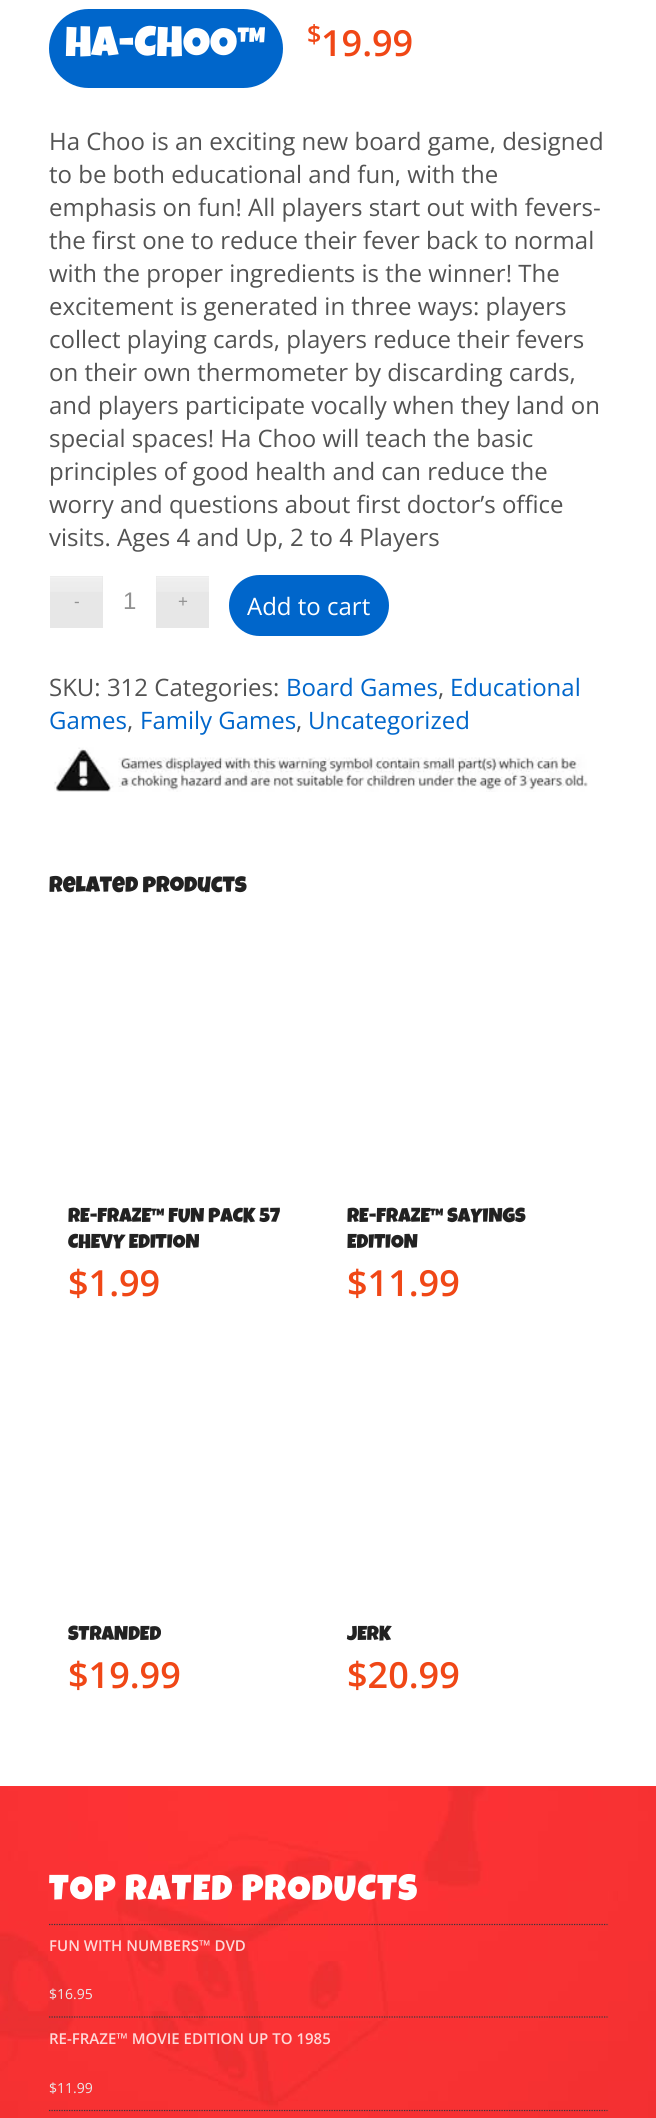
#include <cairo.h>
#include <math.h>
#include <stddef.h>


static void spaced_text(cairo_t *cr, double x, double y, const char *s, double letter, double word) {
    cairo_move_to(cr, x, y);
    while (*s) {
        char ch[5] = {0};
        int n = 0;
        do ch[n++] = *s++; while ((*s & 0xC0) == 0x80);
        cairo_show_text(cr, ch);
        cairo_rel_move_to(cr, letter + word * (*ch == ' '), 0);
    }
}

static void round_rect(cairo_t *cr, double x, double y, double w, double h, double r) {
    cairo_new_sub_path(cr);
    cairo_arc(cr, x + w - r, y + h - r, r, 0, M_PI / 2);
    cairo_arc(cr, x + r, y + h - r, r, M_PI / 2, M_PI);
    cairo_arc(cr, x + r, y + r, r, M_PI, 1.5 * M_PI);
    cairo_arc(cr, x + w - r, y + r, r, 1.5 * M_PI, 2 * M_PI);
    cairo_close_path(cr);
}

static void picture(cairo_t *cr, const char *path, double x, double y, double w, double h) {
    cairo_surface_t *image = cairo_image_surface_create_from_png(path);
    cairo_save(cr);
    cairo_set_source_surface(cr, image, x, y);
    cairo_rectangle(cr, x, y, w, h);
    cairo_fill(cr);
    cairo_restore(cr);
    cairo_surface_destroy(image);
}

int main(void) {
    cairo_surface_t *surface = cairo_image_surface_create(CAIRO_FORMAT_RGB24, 656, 2118);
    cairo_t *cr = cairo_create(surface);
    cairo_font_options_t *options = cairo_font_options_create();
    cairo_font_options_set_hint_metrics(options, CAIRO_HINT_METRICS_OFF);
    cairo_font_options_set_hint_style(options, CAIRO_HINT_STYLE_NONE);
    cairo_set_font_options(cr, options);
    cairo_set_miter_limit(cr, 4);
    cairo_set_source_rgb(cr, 1, 1, 1);
    cairo_paint(cr);
    cairo_set_source_rgb(cr, 0, 0.4, 0.796);
    round_rect(cr, 49, 9, 234, 79, 39.5);
    cairo_fill(cr);
    cairo_select_font_face(cr, "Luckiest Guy", CAIRO_FONT_SLANT_NORMAL, CAIRO_FONT_WEIGHT_NORMAL);
    cairo_set_font_size(cr, 42.5);
    cairo_set_source_rgb(cr, 1, 1, 1);
    cairo_move_to(cr, 65, 56);
    cairo_show_text(cr, "HA-CHOO™");
    cairo_select_font_face(cr, "Open Sans SemiBold", CAIRO_FONT_SLANT_NORMAL, CAIRO_FONT_WEIGHT_NORMAL);
    cairo_set_font_size(cr, 25);
    cairo_set_source_rgb(cr, 0.941, 0.278, 0.086);
    cairo_move_to(cr, 307, 43);
    cairo_show_text(cr, "$");
    cairo_set_font_size(cr, 36);
    cairo_move_to(cr, 321, 56);
    cairo_show_text(cr, "19.99");
    cairo_select_font_face(cr, "Open Sans", CAIRO_FONT_SLANT_NORMAL, CAIRO_FONT_WEIGHT_NORMAL);
    cairo_set_font_size(cr, 24);
    cairo_set_source_rgb(cr, 0.325, 0.325, 0.325);
    cairo_move_to(cr, 49, 150);
    cairo_show_text(cr, "Ha Choo is an exciting new board game, designed");
    cairo_move_to(cr, 49, 183);
    cairo_show_text(cr, "to be both educational and fun, with the");
    cairo_move_to(cr, 49, 216);
    cairo_show_text(cr, "emphasis on fun! All players start out with fevers-");
    cairo_move_to(cr, 49, 249);
    cairo_show_text(cr, "the first one to reduce their fever back to normal");
    cairo_move_to(cr, 49, 282);
    cairo_show_text(cr, "with the proper ingredients is the winner! The");
    cairo_move_to(cr, 49, 315);
    cairo_show_text(cr, "excitement is generated in three ways: players");
    cairo_move_to(cr, 49, 348);
    cairo_show_text(cr, "collect playing cards, players reduce their fevers");
    cairo_move_to(cr, 49, 381);
    cairo_show_text(cr, "on their own thermometer by discarding cards,");
    cairo_move_to(cr, 49, 414);
    cairo_show_text(cr, "and players participate vocally when they land on");
    cairo_move_to(cr, 49, 447);
    cairo_show_text(cr, "special spaces! Ha Choo will teach the basic");
    cairo_move_to(cr, 49, 480);
    cairo_show_text(cr, "principles of good health and can reduce the");
    cairo_move_to(cr, 49, 513);
    cairo_show_text(cr, "worry and questions about first doctor’s office");
    cairo_move_to(cr, 49, 546);
    cairo_show_text(cr, "visits. Ages 4 and Up, 2 to 4 Players");
    cairo_set_source_rgb(cr, 0.906, 0.906, 0.906);
    cairo_rectangle(cr, 50, 576, 53, 52);
    cairo_fill(cr);
    picture(cr, "img1.png", 50, 576, 53, 16);
    cairo_rectangle(cr, 156, 576, 53, 52);
    cairo_fill(cr);
    picture(cr, "img2.png", 156, 576, 53, 16);
    cairo_select_font_face(cr, "Liberation Sans", CAIRO_FONT_SLANT_NORMAL, CAIRO_FONT_WEIGHT_NORMAL);
    cairo_set_font_size(cr, 17);
    cairo_set_source_rgb(cr, 0.569, 0.569, 0.569);
    cairo_move_to(cr, 74, 607);
    cairo_show_text(cr, "-");
    cairo_set_font_size(cr, 24);
    cairo_move_to(cr, 123, 609);
    cairo_show_text(cr, "1");
    cairo_set_font_size(cr, 17);
    cairo_move_to(cr, 178, 607);
    cairo_show_text(cr, "+");
    cairo_set_source_rgb(cr, 0, 0.4, 0.796);
    round_rect(cr, 229, 575, 160, 61, 30.5);
    cairo_fill(cr);
    cairo_select_font_face(cr, "Open Sans", CAIRO_FONT_SLANT_NORMAL, CAIRO_FONT_WEIGHT_NORMAL);
    cairo_set_font_size(cr, 24);
    cairo_set_source_rgb(cr, 1, 1, 1);
    cairo_move_to(cr, 247, 615);
    cairo_show_text(cr, "Add to cart");
    cairo_set_source_rgb(cr, 0.325, 0.325, 0.325);
    cairo_move_to(cr, 49, 696);
    cairo_show_text(cr, "SKU: 312 Categories:");
    cairo_set_source_rgb(cr, 0, 0.4, 0.796);
    cairo_move_to(cr, 286, 696);
    cairo_show_text(cr, "Board Games");
    cairo_set_source_rgb(cr, 0.325, 0.325, 0.325);
    cairo_move_to(cr, 438, 696);
    cairo_show_text(cr, ",");
    cairo_set_source_rgb(cr, 0, 0.4, 0.796);
    cairo_move_to(cr, 450, 696);
    cairo_show_text(cr, "Educational");
    cairo_move_to(cr, 49, 729);
    cairo_show_text(cr, "Games");
    cairo_set_source_rgb(cr, 0.325, 0.325, 0.325);
    cairo_move_to(cr, 127, 729);
    cairo_show_text(cr, ",");
    cairo_set_source_rgb(cr, 0, 0.4, 0.796);
    cairo_move_to(cr, 140, 729);
    cairo_show_text(cr, "Family Games");
    cairo_set_source_rgb(cr, 0.325, 0.325, 0.325);
    cairo_move_to(cr, 296, 729);
    cairo_show_text(cr, ",");
    cairo_set_source_rgb(cr, 0, 0.4, 0.796);
    cairo_move_to(cr, 308, 729);
    cairo_show_text(cr, "Uncategorized");
    picture(cr, "img3.png", 54, 747, 534, 45);
    cairo_select_font_face(cr, "Luckiest Guy", CAIRO_FONT_SLANT_NORMAL, CAIRO_FONT_WEIGHT_NORMAL);
    cairo_set_font_size(cr, 22.5);
    cairo_set_source_rgb(cr, 0.133, 0.133, 0.133);
    cairo_move_to(cr, 49, 892);
    cairo_show_text(cr, "Related products");
    cairo_set_font_size(cr, 20);
    cairo_move_to(cr, 68, 1222);
    cairo_show_text(cr, "RE-FRAZE™ FUN PACK 57");
    cairo_move_to(cr, 68, 1248);
    cairo_show_text(cr, "CHEVY EDITION");
    cairo_select_font_face(cr, "Open Sans SemiBold", CAIRO_FONT_SLANT_NORMAL, CAIRO_FONT_WEIGHT_NORMAL);
    cairo_set_font_size(cr, 36);
    cairo_set_source_rgb(cr, 0.941, 0.278, 0.086);
    cairo_move_to(cr, 68, 1296);
    cairo_show_text(cr, "$1.99");
    cairo_select_font_face(cr, "Luckiest Guy", CAIRO_FONT_SLANT_NORMAL, CAIRO_FONT_WEIGHT_NORMAL);
    cairo_set_font_size(cr, 20);
    cairo_set_source_rgb(cr, 0.133, 0.133, 0.133);
    cairo_move_to(cr, 347, 1222);
    cairo_show_text(cr, "RE-FRAZE™ SAYINGS");
    cairo_move_to(cr, 347, 1248);
    cairo_show_text(cr, "EDITION");
    cairo_select_font_face(cr, "Open Sans SemiBold", CAIRO_FONT_SLANT_NORMAL, CAIRO_FONT_WEIGHT_NORMAL);
    cairo_set_font_size(cr, 36);
    cairo_set_source_rgb(cr, 0.941, 0.278, 0.086);
    cairo_move_to(cr, 347, 1296);
    cairo_show_text(cr, "$11.99");
    cairo_select_font_face(cr, "Luckiest Guy", CAIRO_FONT_SLANT_NORMAL, CAIRO_FONT_WEIGHT_NORMAL);
    cairo_set_font_size(cr, 20);
    cairo_set_source_rgb(cr, 0.133, 0.133, 0.133);
    cairo_move_to(cr, 68, 1640);
    cairo_show_text(cr, "STRANDED");
    cairo_select_font_face(cr, "Open Sans SemiBold", CAIRO_FONT_SLANT_NORMAL, CAIRO_FONT_WEIGHT_NORMAL);
    cairo_set_font_size(cr, 36);
    cairo_set_source_rgb(cr, 0.941, 0.278, 0.086);
    cairo_move_to(cr, 68, 1688);
    cairo_show_text(cr, "$19.99");
    cairo_select_font_face(cr, "Luckiest Guy", CAIRO_FONT_SLANT_NORMAL, CAIRO_FONT_WEIGHT_NORMAL);
    cairo_set_font_size(cr, 20);
    cairo_set_source_rgb(cr, 0.133, 0.133, 0.133);
    cairo_move_to(cr, 347, 1640);
    cairo_show_text(cr, "JERK");
    cairo_select_font_face(cr, "Open Sans SemiBold", CAIRO_FONT_SLANT_NORMAL, CAIRO_FONT_WEIGHT_NORMAL);
    cairo_set_font_size(cr, 36);
    cairo_set_source_rgb(cr, 0.941, 0.278, 0.086);
    cairo_move_to(cr, 347, 1688);
    cairo_show_text(cr, "$20.99");
    cairo_set_source_rgb(cr, 1, 0.2, 0.2);
    cairo_rectangle(cr, 0, 1786, 656, 1);
    cairo_fill(cr);
    picture(cr, "img4.png", 0, 1786, 656, 332);
    cairo_select_font_face(cr, "Luckiest Guy", CAIRO_FONT_SLANT_NORMAL, CAIRO_FONT_WEIGHT_NORMAL);
    cairo_set_source_rgb(cr, 1, 1, 1);
    spaced_text(cr, 49, 1900, "TOP RATED PRODUCTS", 1.25, 0);
    cairo_new_path(cr);
    cairo_move_to(cr, 49, 1924.5);
    cairo_line_to(cr, 607.5, 1924.5);
    cairo_set_source_rgb(cr, 0.208, 0.22, 0.235);
    cairo_set_line_width(cr, 1.2);
    cairo_set_dash(cr, (double[]){1.25, 1.25}, 2, 0);
    cairo_stroke(cr);
    cairo_select_font_face(cr, "Open Sans SemiBold", CAIRO_FONT_SLANT_NORMAL, CAIRO_FONT_WEIGHT_NORMAL);
    cairo_set_font_size(cr, 15);
    cairo_set_source_rgb(cr, 1, 0.847, 0.847);
    cairo_move_to(cr, 49, 1951);
    cairo_show_text(cr, "FUN WITH NUMBERS™ DVD");
    cairo_select_font_face(cr, "Open Sans", CAIRO_FONT_SLANT_NORMAL, CAIRO_FONT_WEIGHT_NORMAL);
    cairo_set_font_size(cr, 14);
    cairo_set_source_rgb(cr, 0.91, 0.91, 0.91);
    cairo_move_to(cr, 49, 1999);
    cairo_show_text(cr, "$16.95");
    cairo_new_path(cr);
    cairo_move_to(cr, 49, 2017);
    cairo_line_to(cr, 607.5, 2017);
    cairo_set_source_rgb(cr, 0.208, 0.22, 0.235);
    cairo_stroke(cr);
    cairo_select_font_face(cr, "Open Sans SemiBold", CAIRO_FONT_SLANT_NORMAL, CAIRO_FONT_WEIGHT_NORMAL);
    cairo_set_font_size(cr, 15);
    cairo_set_source_rgb(cr, 1, 0.847, 0.847);
    cairo_move_to(cr, 49, 2044);
    cairo_show_text(cr, "RE-FRAZE™ MOVIE EDITION UP TO 1985");
    cairo_select_font_face(cr, "Open Sans", CAIRO_FONT_SLANT_NORMAL, CAIRO_FONT_WEIGHT_NORMAL);
    cairo_set_font_size(cr, 14);
    cairo_set_source_rgb(cr, 0.91, 0.91, 0.91);
    cairo_move_to(cr, 49, 2093);
    cairo_show_text(cr, "$11.99");
    cairo_new_path(cr);
    cairo_move_to(cr, 49, 2110.5);
    cairo_line_to(cr, 607.5, 2110.5);
    cairo_set_source_rgb(cr, 0.208, 0.22, 0.235);
    cairo_stroke(cr);
    cairo_surface_write_to_png(surface, "page.png");
    cairo_font_options_destroy(options);
    cairo_destroy(cr);
    cairo_surface_destroy(surface);
    return 0;
}
